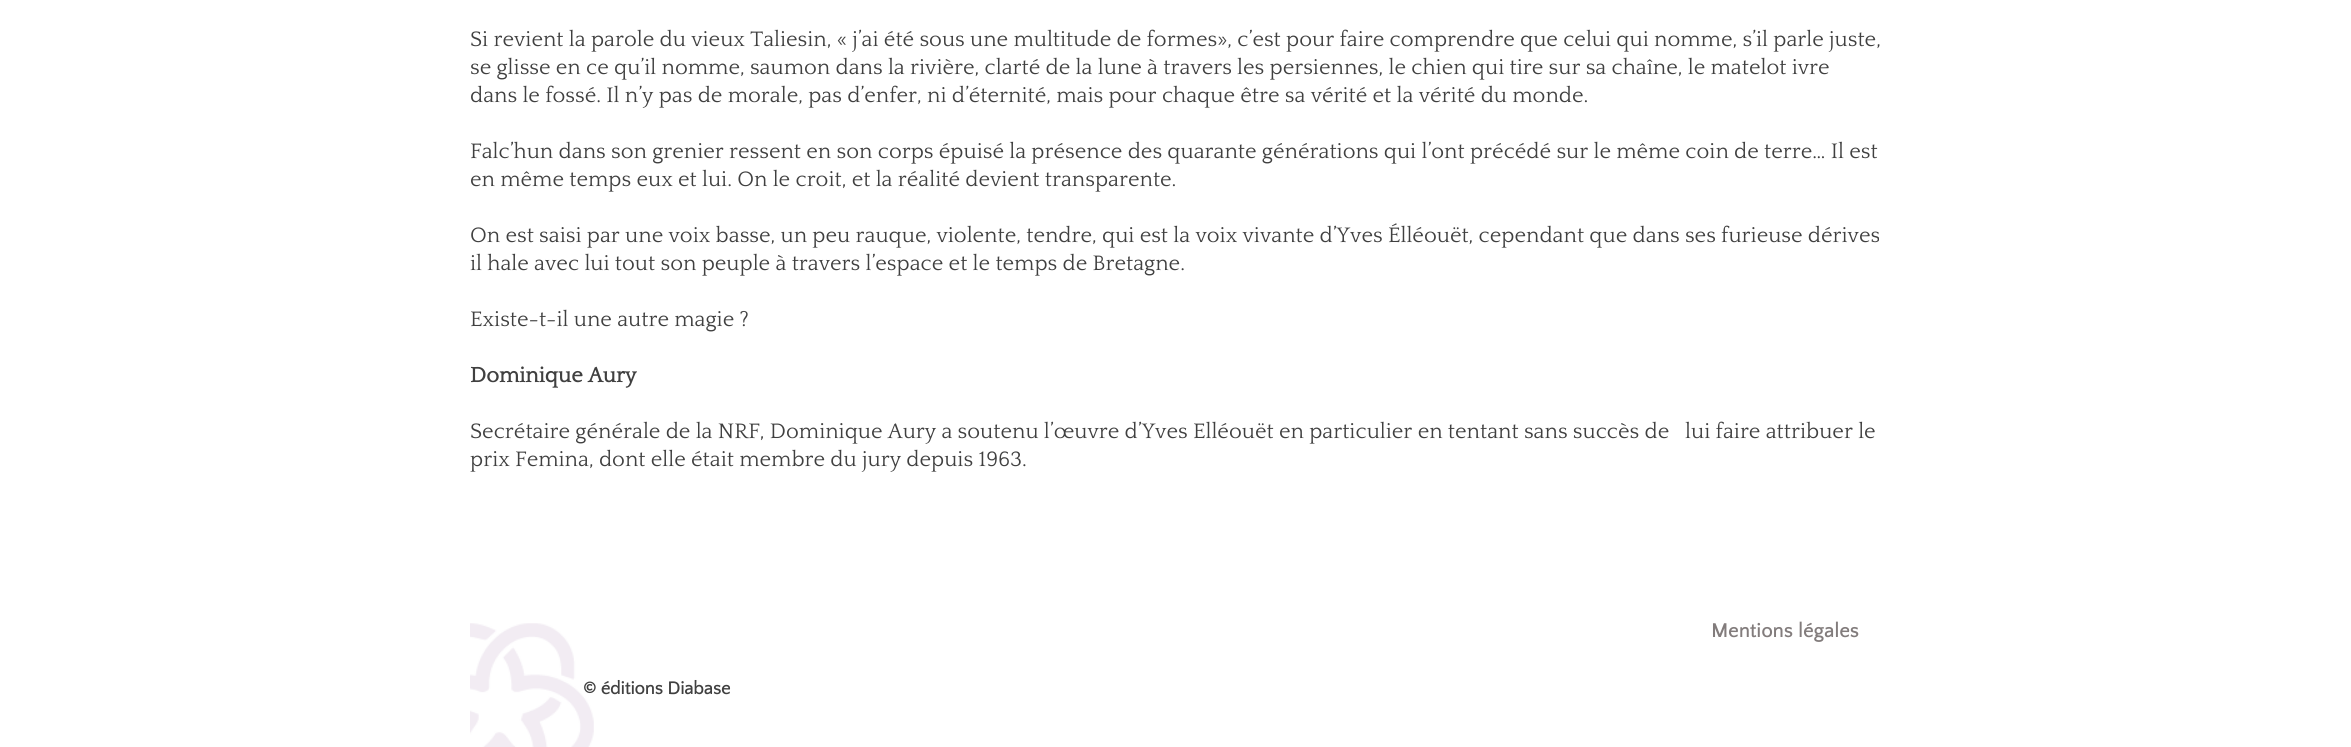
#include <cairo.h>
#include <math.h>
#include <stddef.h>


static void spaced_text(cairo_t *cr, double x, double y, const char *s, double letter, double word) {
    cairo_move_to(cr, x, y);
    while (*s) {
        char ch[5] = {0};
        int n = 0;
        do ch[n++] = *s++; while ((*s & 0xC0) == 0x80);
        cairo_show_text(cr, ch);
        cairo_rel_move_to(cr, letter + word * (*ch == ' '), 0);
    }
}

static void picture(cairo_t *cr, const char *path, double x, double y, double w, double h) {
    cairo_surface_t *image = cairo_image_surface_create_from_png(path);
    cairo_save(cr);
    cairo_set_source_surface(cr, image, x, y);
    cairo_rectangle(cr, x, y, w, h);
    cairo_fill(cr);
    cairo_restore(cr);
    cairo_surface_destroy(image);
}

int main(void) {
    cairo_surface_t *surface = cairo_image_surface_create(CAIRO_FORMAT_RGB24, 2351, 747);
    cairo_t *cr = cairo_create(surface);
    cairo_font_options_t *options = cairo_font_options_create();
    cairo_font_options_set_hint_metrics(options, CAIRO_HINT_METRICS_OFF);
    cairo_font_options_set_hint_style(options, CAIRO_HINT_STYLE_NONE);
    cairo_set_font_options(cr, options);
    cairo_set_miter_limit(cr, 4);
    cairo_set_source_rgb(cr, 1, 1, 1);
    cairo_paint(cr);
    cairo_select_font_face(cr, "Quattrocento", CAIRO_FONT_SLANT_NORMAL, CAIRO_FONT_WEIGHT_NORMAL);
    cairo_set_font_size(cr, 22);
    cairo_set_source_rgb(cr, 0.251, 0.251, 0.251);
    cairo_move_to(cr, 470, 46);
    cairo_show_text(cr, "Si revient la parole du vieux Taliesin, « j’ai été sous une multitude de formes», c’est pour faire comprendre que celui qui nomme, s’il parle juste,");
    cairo_move_to(cr, 470, 74);
    cairo_show_text(cr, "se glisse en ce qu’il nomme, saumon dans la rivière, clarté de la lune à travers les persiennes, le chien qui tire sur sa chaîne, le matelot ivre");
    cairo_move_to(cr, 470, 102);
    cairo_show_text(cr, "dans le fossé. Il n’y pas de morale, pas d’enfer, ni d’éternité, mais pour chaque être sa vérité et la vérité du monde.");
    cairo_move_to(cr, 470, 158);
    cairo_show_text(cr, "Falc’hun dans son grenier ressent en son corps épuisé la présence des quarante générations qui l’ont précédé sur le même coin de terre… Il est");
    cairo_move_to(cr, 470, 186);
    cairo_show_text(cr, "en même temps eux et lui. On le croit, et la réalité devient transparente.");
    cairo_move_to(cr, 470, 242);
    cairo_show_text(cr, "On est saisi par une voix basse, un peu rauque, violente, tendre, qui est la voix vivante d’Yves Élléouët, cependant que dans ses furieuse dérives");
    cairo_move_to(cr, 470, 270);
    cairo_show_text(cr, "il hale avec lui tout son peuple à travers l’espace et le temps de Bretagne.");
    cairo_move_to(cr, 470, 326);
    cairo_show_text(cr, "Existe-t-il une autre magie ?");
    cairo_select_font_face(cr, "Quattrocento", CAIRO_FONT_SLANT_NORMAL, CAIRO_FONT_WEIGHT_BOLD);
    cairo_move_to(cr, 470, 382);
    cairo_show_text(cr, "Dominique Aury");
    cairo_select_font_face(cr, "Quattrocento", CAIRO_FONT_SLANT_NORMAL, CAIRO_FONT_WEIGHT_NORMAL);
    cairo_move_to(cr, 470, 438);
    cairo_show_text(cr, "Secrétaire générale de la NRF, Dominique Aury a soutenu l’œuvre d’Yves Elléouët en particulier en tentant sans succès de   lui faire attribuer le");
    cairo_move_to(cr, 470, 466);
    cairo_show_text(cr, "prix Femina, dont elle était membre du jury depuis 1963.");
    picture(cr, "img1.png", 470, 623, 124, 124);
    cairo_select_font_face(cr, "Quattrocento Sans", CAIRO_FONT_SLANT_NORMAL, CAIRO_FONT_WEIGHT_BOLD);
    cairo_set_font_size(cr, 20);
    cairo_set_source_rgb(cr, 0.51, 0.486, 0.486);
    spaced_text(cr, 1711, 637, "Mentions légales", 0.25, 0);
    cairo_set_font_size(cr, 18.25);
    cairo_set_source_rgb(cr, 0.251, 0.251, 0.251);
    cairo_move_to(cr, 583, 694);
    cairo_show_text(cr, "© éditions Diabase");
    cairo_surface_write_to_png(surface, "page.png");
    cairo_font_options_destroy(options);
    cairo_destroy(cr);
    cairo_surface_destroy(surface);
    return 0;
}
